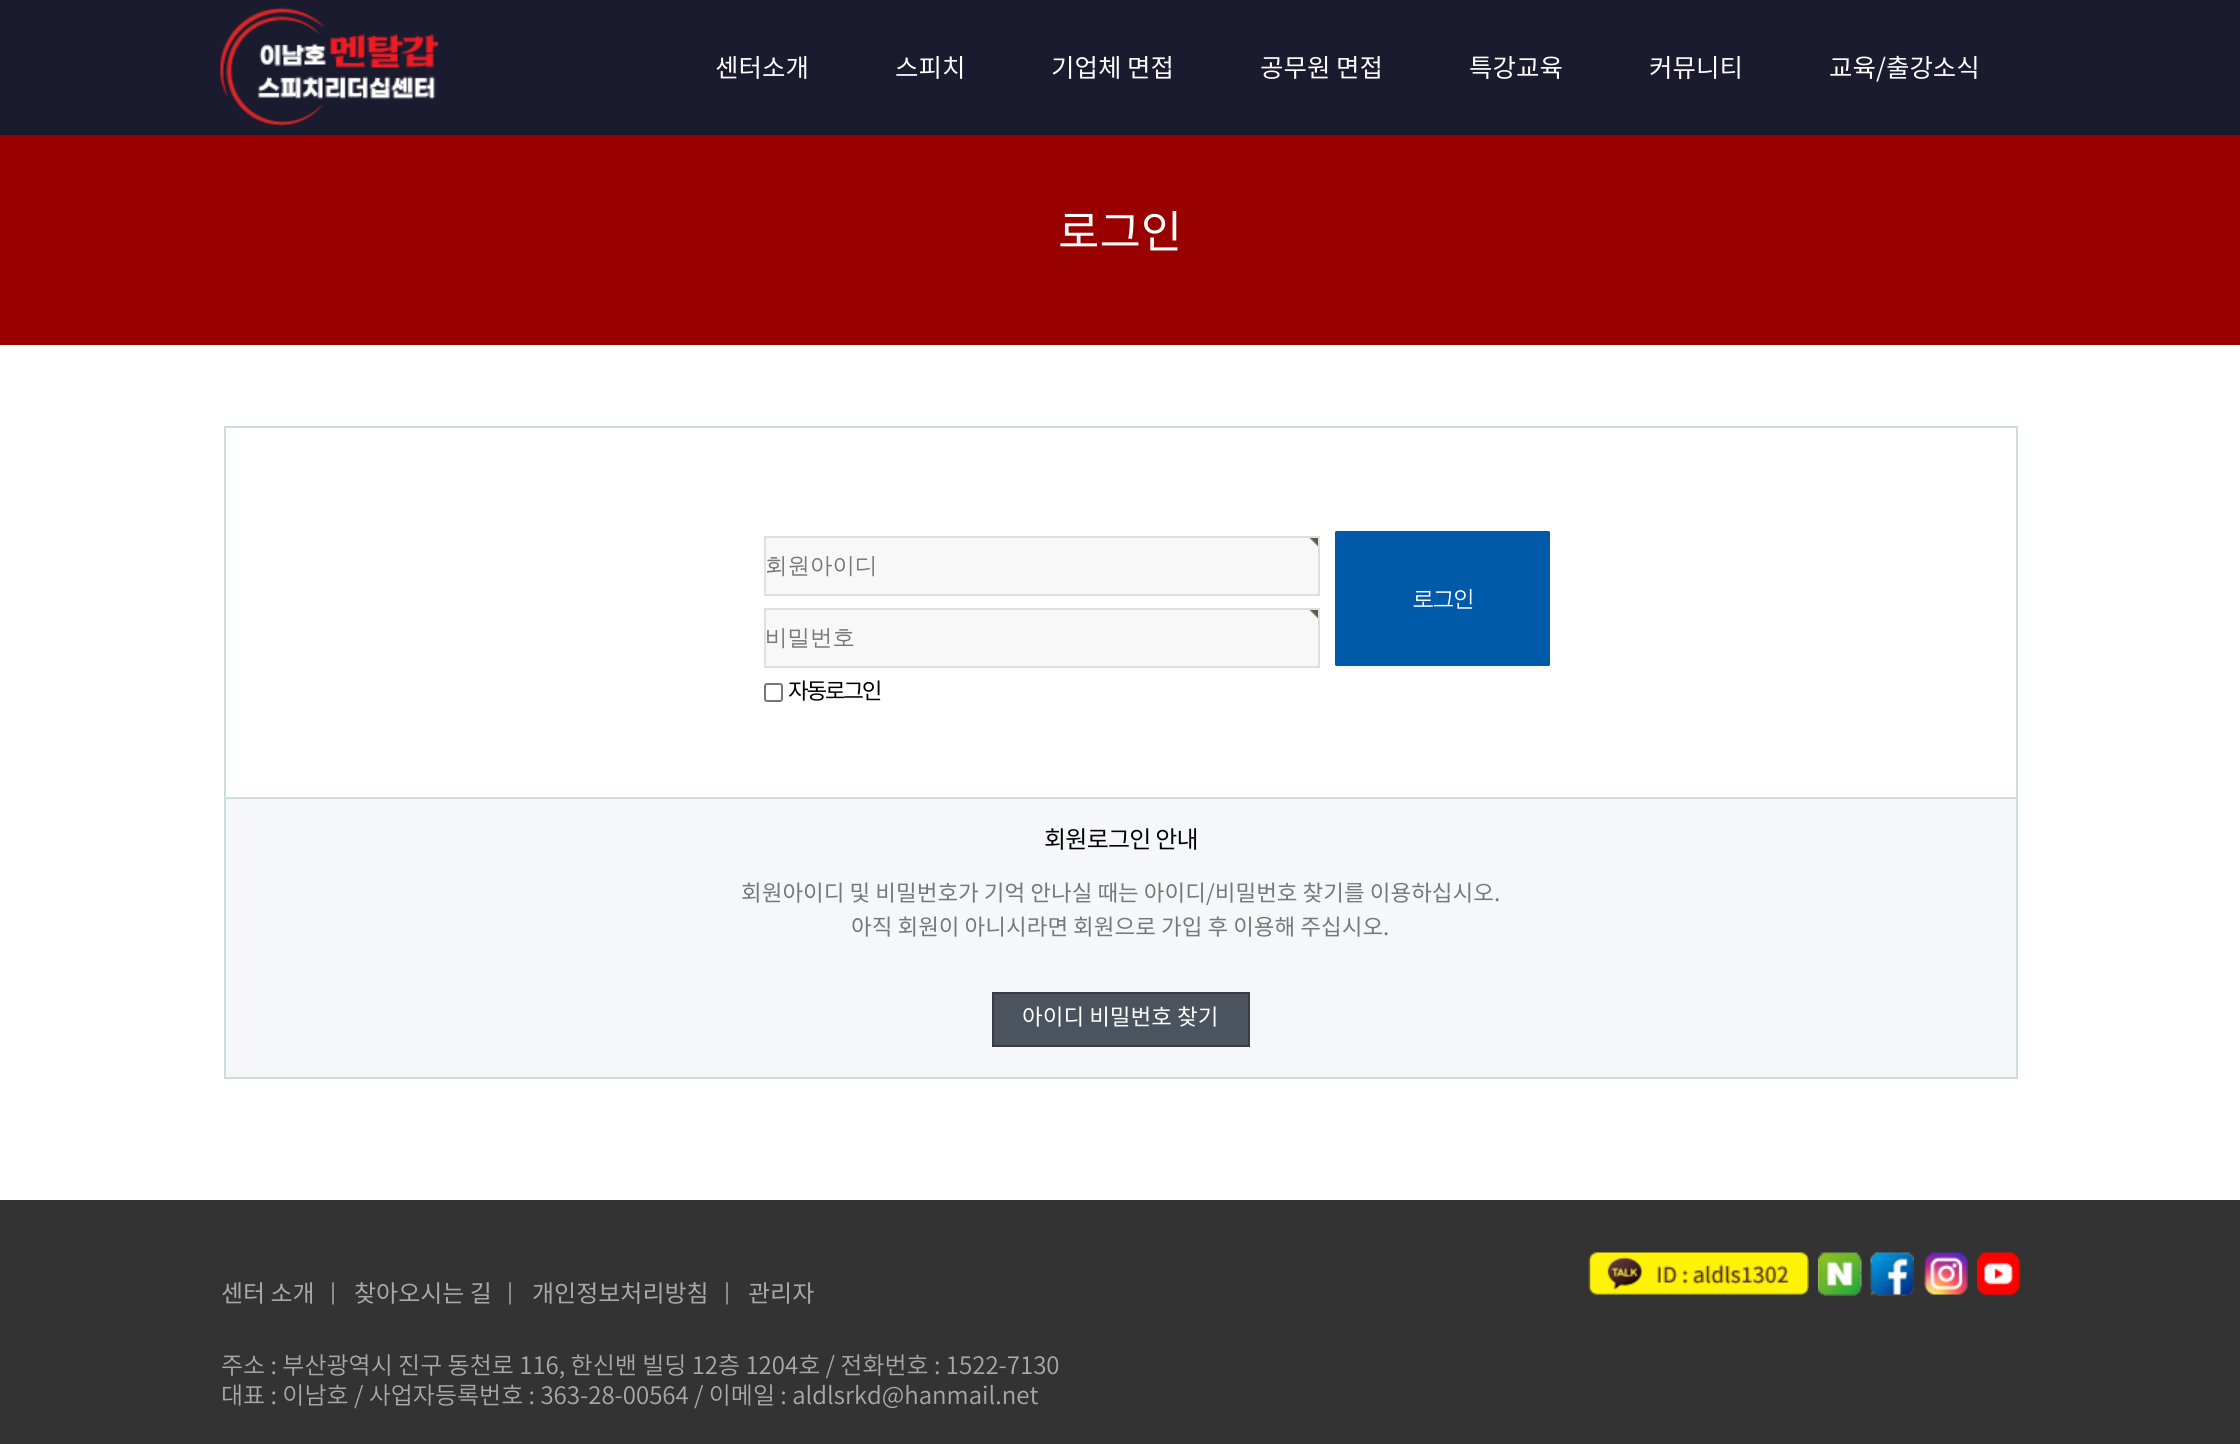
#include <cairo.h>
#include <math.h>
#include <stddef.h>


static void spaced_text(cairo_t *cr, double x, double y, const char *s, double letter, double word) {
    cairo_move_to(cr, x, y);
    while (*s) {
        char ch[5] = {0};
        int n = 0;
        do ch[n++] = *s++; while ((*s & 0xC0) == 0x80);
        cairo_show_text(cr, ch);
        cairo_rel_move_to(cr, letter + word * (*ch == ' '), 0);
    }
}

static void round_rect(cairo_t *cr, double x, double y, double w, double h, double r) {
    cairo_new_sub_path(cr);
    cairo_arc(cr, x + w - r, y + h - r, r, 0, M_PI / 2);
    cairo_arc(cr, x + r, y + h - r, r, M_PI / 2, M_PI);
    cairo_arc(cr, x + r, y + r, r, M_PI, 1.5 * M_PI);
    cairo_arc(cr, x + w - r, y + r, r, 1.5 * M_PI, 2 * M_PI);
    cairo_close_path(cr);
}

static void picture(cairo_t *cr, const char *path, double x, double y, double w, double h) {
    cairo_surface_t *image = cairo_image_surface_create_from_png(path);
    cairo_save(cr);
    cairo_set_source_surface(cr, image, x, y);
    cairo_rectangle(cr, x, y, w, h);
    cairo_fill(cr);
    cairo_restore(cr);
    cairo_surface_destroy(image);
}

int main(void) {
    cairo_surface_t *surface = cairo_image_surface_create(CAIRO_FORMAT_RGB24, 2240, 1444);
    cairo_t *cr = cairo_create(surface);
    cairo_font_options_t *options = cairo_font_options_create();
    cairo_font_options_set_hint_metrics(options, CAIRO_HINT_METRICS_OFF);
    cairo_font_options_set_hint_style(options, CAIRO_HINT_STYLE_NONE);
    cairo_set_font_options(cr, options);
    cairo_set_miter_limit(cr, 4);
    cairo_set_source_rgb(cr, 1, 1, 1);
    cairo_paint(cr);
    cairo_set_source_rgb(cr, 0.102, 0.106, 0.184);
    cairo_rectangle(cr, 0, 0, 2240, 135);
    cairo_fill(cr);
    picture(cr, "img1.png", 220, 7, 218, 119);
    cairo_select_font_face(cr, "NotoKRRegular", CAIRO_FONT_SLANT_NORMAL, CAIRO_FONT_WEIGHT_NORMAL);
    cairo_set_font_size(cr, 25.5);
    cairo_set_source_rgb(cr, 1, 1, 1);
    cairo_move_to(cr, 715, 77);
    cairo_show_text(cr, "센터소개");
    cairo_move_to(cr, 895, 77);
    cairo_show_text(cr, "스피치");
    cairo_move_to(cr, 1051, 77);
    cairo_show_text(cr, "기업체 면접");
    cairo_move_to(cr, 1260, 77);
    cairo_show_text(cr, "공무원 면접");
    cairo_move_to(cr, 1469, 77);
    cairo_show_text(cr, "특강교육");
    cairo_move_to(cr, 1649, 77);
    cairo_show_text(cr, "커뮤니티");
    cairo_move_to(cr, 1829, 77);
    cairo_show_text(cr, "교육/출강소식");
    cairo_set_source_rgb(cr, 0.6, 0.004, 0);
    cairo_rectangle(cr, 0, 135, 2240, 210);
    cairo_fill(cr);
    cairo_set_font_size(cr, 45);
    cairo_set_source_rgb(cr, 1, 1, 1);
    cairo_move_to(cr, 1058, 248);
    cairo_show_text(cr, "로그인");
    cairo_set_source_rgb(cr, 0.812, 0.871, 0.847);
    cairo_rectangle(cr, 224, 426, 1794, 2);
    cairo_fill(cr);
    cairo_rectangle(cr, 2016, 426, 2, 371);
    cairo_fill(cr);
    cairo_rectangle(cr, 224, 426, 2, 371);
    cairo_fill(cr);
    cairo_set_source_rgb(cr, 0.969, 0.969, 0.969);
    cairo_rectangle(cr, 766, 538, 552, 56);
    cairo_fill(cr);
    picture(cr, "img2.png", 1309, 538, 9, 8);
    cairo_rectangle(cr, 765, 537, 554, 58);
    cairo_set_source_rgb(cr, 0.875, 0.875, 0.875);
    cairo_stroke(cr);
    cairo_select_font_face(cr, "WenQuanYi Zen Hei Medium", CAIRO_FONT_SLANT_NORMAL, CAIRO_FONT_WEIGHT_NORMAL);
    cairo_set_font_size(cr, 22.5);
    cairo_set_source_rgb(cr, 0.467, 0.467, 0.467);
    cairo_move_to(cr, 765, 573);
    cairo_show_text(cr, "회원아이디");
    cairo_set_source_rgb(cr, 0, 0.353, 0.663);
    round_rect(cr, 1335, 531, 215, 135, 1.5);
    cairo_fill(cr);
    cairo_set_source_rgb(cr, 1, 1, 1);
    spaced_text(cr, 1412, 606, "로그인", -2.25, 0);
    cairo_set_source_rgb(cr, 0.969, 0.969, 0.969);
    cairo_rectangle(cr, 766, 610, 552, 56);
    cairo_fill(cr);
    picture(cr, "img2.png", 1309, 610, 9, 8);
    cairo_rectangle(cr, 765, 609, 554, 58);
    cairo_set_source_rgb(cr, 0.875, 0.875, 0.875);
    cairo_stroke(cr);
    cairo_set_source_rgb(cr, 0.467, 0.467, 0.467);
    cairo_move_to(cr, 765, 645);
    cairo_show_text(cr, "비밀번호");
    round_rect(cr, 765, 684, 17, 17, 2);
    cairo_set_source_rgb(cr, 0.463, 0.463, 0.463);
    cairo_stroke(cr);
    cairo_select_font_face(cr, "NotoKRRegular", CAIRO_FONT_SLANT_NORMAL, CAIRO_FONT_WEIGHT_NORMAL);
    cairo_set_source_rgb(cr, 0, 0, 0);
    spaced_text(cr, 788, 699, "자동로그인", -2.25, 0);
    cairo_set_source_rgb(cr, 0.961, 0.965, 0.98);
    cairo_rectangle(cr, 225, 798, 1792, 280);
    cairo_fill_preserve(cr);
    cairo_set_source_rgb(cr, 0.812, 0.871, 0.847);
    cairo_stroke(cr);
    cairo_set_font_size(cr, 24);
    cairo_set_source_rgb(cr, 0, 0, 0);
    spaced_text(cr, 1044, 848, "회원로그인 안내", -0.75, 0);
    cairo_set_font_size(cr, 22.5);
    cairo_set_source_rgb(cr, 0.467, 0.467, 0.467);
    cairo_move_to(cr, 741, 901);
    cairo_show_text(cr, "회원아이디 및 비밀번호가 기억 안나실 때는 아이디/비밀번호 찾기를 이용하십시오.");
    cairo_move_to(cr, 851, 935);
    cairo_show_text(cr, "아직 회원이 아니시라면 회원으로 가입 후 이용해 주십시오.");
    cairo_set_source_rgb(cr, 0.294, 0.329, 0.369);
    cairo_rectangle(cr, 993, 993, 256, 53);
    cairo_fill_preserve(cr);
    cairo_set_source_rgb(cr, 0.231, 0.235, 0.247);
    cairo_stroke(cr);
    cairo_set_source_rgb(cr, 1, 1, 1);
    cairo_move_to(cr, 1022, 1025);
    cairo_show_text(cr, "아이디 비밀번호 찾기");
    cairo_set_source_rgb(cr, 0.2, 0.2, 0.2);
    cairo_rectangle(cr, 0, 1200, 2240, 244);
    cairo_fill(cr);
    cairo_set_font_size(cr, 24);
    cairo_set_source_rgb(cr, 0.663, 0.663, 0.663);
    cairo_move_to(cr, 221, 1302);
    cairo_show_text(cr, "센터 소개");
    cairo_select_font_face(cr, "Dotum", CAIRO_FONT_SLANT_NORMAL, CAIRO_FONT_WEIGHT_NORMAL);
    cairo_move_to(cr, 321, 1302);
    cairo_show_text(cr, "｜");
    cairo_select_font_face(cr, "NotoKRRegular", CAIRO_FONT_SLANT_NORMAL, CAIRO_FONT_WEIGHT_NORMAL);
    cairo_move_to(cr, 354, 1302);
    cairo_show_text(cr, "찾아오시는 길");
    cairo_select_font_face(cr, "Dotum", CAIRO_FONT_SLANT_NORMAL, CAIRO_FONT_WEIGHT_NORMAL);
    cairo_move_to(cr, 498, 1302);
    cairo_show_text(cr, "｜");
    cairo_select_font_face(cr, "NotoKRRegular", CAIRO_FONT_SLANT_NORMAL, CAIRO_FONT_WEIGHT_NORMAL);
    cairo_move_to(cr, 532, 1302);
    cairo_show_text(cr, "개인정보처리방침");
    cairo_select_font_face(cr, "Dotum", CAIRO_FONT_SLANT_NORMAL, CAIRO_FONT_WEIGHT_NORMAL);
    cairo_move_to(cr, 715, 1302);
    cairo_show_text(cr, "｜");
    cairo_select_font_face(cr, "NotoKRRegular", CAIRO_FONT_SLANT_NORMAL, CAIRO_FONT_WEIGHT_NORMAL);
    cairo_move_to(cr, 748, 1302);
    cairo_show_text(cr, "관리자");
    picture(cr, "img3.png", 1588, 1252, 221, 43);
    picture(cr, "img4.png", 1818, 1252, 44, 44);
    picture(cr, "img5.png", 1870, 1252, 44, 44);
    picture(cr, "img6.png", 1924, 1252, 44, 43);
    picture(cr, "img7.png", 1977, 1252, 44, 44);
    cairo_select_font_face(cr, "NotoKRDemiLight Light", CAIRO_FONT_SLANT_NORMAL, CAIRO_FONT_WEIGHT_NORMAL);
    cairo_move_to(cr, 221, 1374);
    cairo_show_text(cr, "주소 : 부산광역시 진구 동천로 116, 한신밴 빌딩 12층 1204호 / 전화번호 : 1522-7130");
    cairo_move_to(cr, 221, 1404);
    cairo_show_text(cr, "대표 : 이남호 / 사업자등록번호 : 363-28-00564 / 이메일 : aldlsrkd@hanmail.net");
    cairo_surface_write_to_png(surface, "page.png");
    cairo_font_options_destroy(options);
    cairo_destroy(cr);
    cairo_surface_destroy(surface);
    return 0;
}
